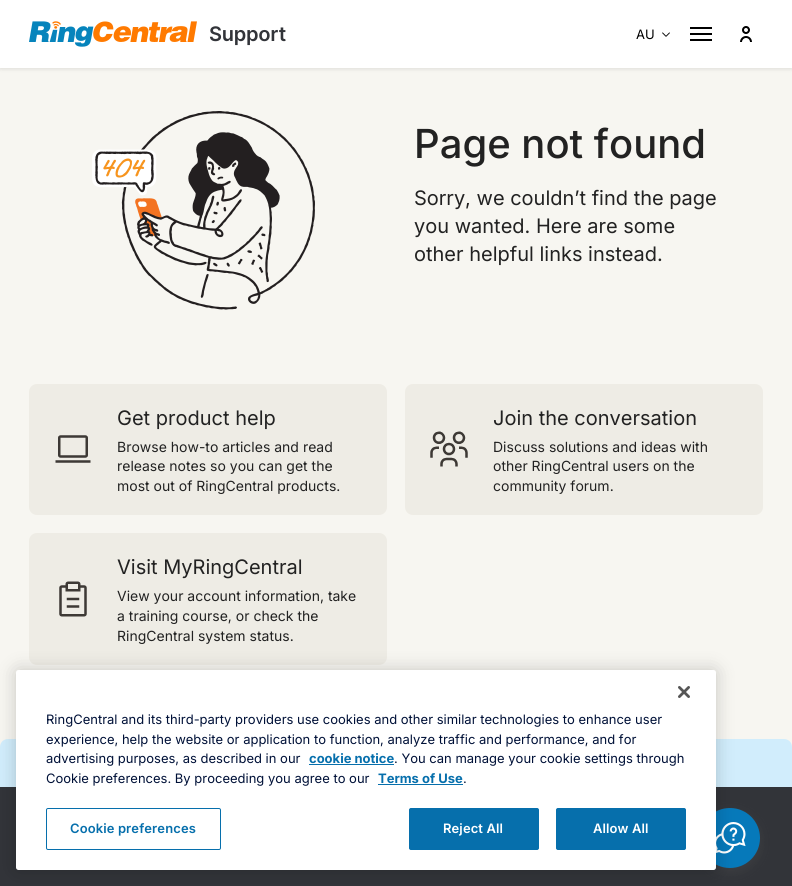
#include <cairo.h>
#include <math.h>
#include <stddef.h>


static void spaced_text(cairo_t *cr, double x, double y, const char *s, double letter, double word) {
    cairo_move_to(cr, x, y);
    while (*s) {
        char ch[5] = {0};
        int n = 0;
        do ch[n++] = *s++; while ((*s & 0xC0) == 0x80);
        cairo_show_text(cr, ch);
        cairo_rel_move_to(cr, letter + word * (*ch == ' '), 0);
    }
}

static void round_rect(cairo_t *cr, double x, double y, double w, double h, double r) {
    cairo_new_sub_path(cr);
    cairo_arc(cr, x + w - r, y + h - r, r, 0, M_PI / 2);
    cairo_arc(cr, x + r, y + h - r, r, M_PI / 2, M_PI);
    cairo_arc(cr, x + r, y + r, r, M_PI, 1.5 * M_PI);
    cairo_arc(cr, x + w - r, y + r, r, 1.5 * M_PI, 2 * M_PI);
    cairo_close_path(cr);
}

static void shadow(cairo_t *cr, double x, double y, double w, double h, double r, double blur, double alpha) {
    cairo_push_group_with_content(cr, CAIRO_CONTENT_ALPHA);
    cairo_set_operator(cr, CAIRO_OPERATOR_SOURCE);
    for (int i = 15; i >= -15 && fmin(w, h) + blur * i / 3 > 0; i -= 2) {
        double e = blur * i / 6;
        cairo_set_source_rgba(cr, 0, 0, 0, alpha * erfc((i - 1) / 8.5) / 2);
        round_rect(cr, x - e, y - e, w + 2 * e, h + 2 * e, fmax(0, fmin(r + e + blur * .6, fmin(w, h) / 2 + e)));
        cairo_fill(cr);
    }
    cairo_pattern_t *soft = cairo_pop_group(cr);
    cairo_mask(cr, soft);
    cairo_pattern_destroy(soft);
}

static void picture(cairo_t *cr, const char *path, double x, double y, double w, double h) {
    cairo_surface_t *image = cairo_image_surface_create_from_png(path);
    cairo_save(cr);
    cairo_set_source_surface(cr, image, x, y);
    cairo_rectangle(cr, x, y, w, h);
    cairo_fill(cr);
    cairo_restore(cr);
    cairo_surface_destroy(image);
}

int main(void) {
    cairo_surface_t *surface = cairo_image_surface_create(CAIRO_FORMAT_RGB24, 792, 886);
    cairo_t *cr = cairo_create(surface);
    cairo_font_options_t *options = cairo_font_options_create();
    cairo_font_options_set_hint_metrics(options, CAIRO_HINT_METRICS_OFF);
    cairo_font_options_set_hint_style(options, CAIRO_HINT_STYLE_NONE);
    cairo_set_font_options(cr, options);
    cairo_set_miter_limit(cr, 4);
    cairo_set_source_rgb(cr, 0.965, 0.961, 0.945);
    cairo_paint(cr);
    cairo_set_source_rgb(cr, 0, 0, 0);
    shadow(cr, 0, 0, 792, 68, 0, 2.5, 0.15);
    cairo_set_source_rgb(cr, 1, 1, 1);
    cairo_rectangle(cr, 0, 0, 792, 68);
    cairo_fill(cr);
    picture(cr, "img1.png", 29, 21, 257, 26);
    cairo_select_font_face(cr, "Inter", CAIRO_FONT_SLANT_NORMAL, CAIRO_FONT_WEIGHT_NORMAL);
    cairo_set_font_size(cr, 13);
    cairo_set_source_rgb(cr, 0, 0, 0);
    cairo_move_to(cr, 636, 39);
    cairo_show_text(cr, "AU");
    picture(cr, "img2.png", 662, 32, 8, 5);
    cairo_rectangle(cr, 690, 27, 22, 2);
    cairo_fill(cr);
    cairo_rectangle(cr, 690, 33, 22, 2);
    cairo_fill(cr);
    cairo_rectangle(cr, 690, 39, 22, 2);
    cairo_fill(cr);
    picture(cr, "img3.png", 740, 26, 12, 16);
    picture(cr, "img4.png", 92, 111, 223, 199);
    cairo_select_font_face(cr, "Inter Medium", CAIRO_FONT_SLANT_NORMAL, CAIRO_FONT_WEIGHT_NORMAL);
    cairo_set_font_size(cr, 40);
    cairo_set_source_rgb(cr, 0.133, 0.133, 0.133);
    cairo_move_to(cr, 414, 158);
    cairo_show_text(cr, "Page not found");
    cairo_select_font_face(cr, "Inter", CAIRO_FONT_SLANT_NORMAL, CAIRO_FONT_WEIGHT_NORMAL);
    cairo_set_font_size(cr, 20);
    cairo_move_to(cr, 414, 205);
    cairo_show_text(cr, "Sorry, we couldn’t find the page");
    cairo_move_to(cr, 414, 233);
    cairo_show_text(cr, "you wanted. Here are some");
    cairo_move_to(cr, 414, 261);
    cairo_show_text(cr, "other helpful links instead.");
    cairo_set_source_rgb(cr, 0.933, 0.925, 0.898);
    round_rect(cr, 29, 384, 358, 131, 8);
    cairo_fill(cr);
    picture(cr, "img5.png", 55, 435, 36, 28);
    cairo_set_source_rgb(cr, 0.133, 0.133, 0.133);
    cairo_move_to(cr, 117, 425);
    cairo_show_text(cr, "Get product help");
    cairo_set_font_size(cr, 14);
    cairo_move_to(cr, 117, 452);
    cairo_show_text(cr, "Browse how-to articles and read");
    cairo_move_to(cr, 117, 471);
    cairo_show_text(cr, "release notes so you can get the");
    cairo_move_to(cr, 117, 491);
    cairo_show_text(cr, "most out of RingCentral products.");
    cairo_set_source_rgb(cr, 0.933, 0.925, 0.898);
    round_rect(cr, 405, 384, 358, 131, 8);
    cairo_fill(cr);
    picture(cr, "img6.png", 430, 431, 38, 36);
    cairo_set_font_size(cr, 20);
    cairo_set_source_rgb(cr, 0.133, 0.133, 0.133);
    cairo_move_to(cr, 493, 425);
    cairo_show_text(cr, "Join the conversation");
    cairo_set_font_size(cr, 14);
    cairo_move_to(cr, 493, 452);
    cairo_show_text(cr, "Discuss solutions and ideas with");
    cairo_move_to(cr, 493, 471);
    cairo_show_text(cr, "other RingCentral users on the");
    cairo_move_to(cr, 493, 491);
    cairo_show_text(cr, "community forum.");
    cairo_set_source_rgb(cr, 0.933, 0.925, 0.898);
    round_rect(cr, 29, 533, 358, 132, 8);
    cairo_fill(cr);
    picture(cr, "img7.png", 59, 581, 28, 36);
    cairo_set_font_size(cr, 20);
    cairo_set_source_rgb(cr, 0.133, 0.133, 0.133);
    cairo_move_to(cr, 117, 574);
    cairo_show_text(cr, "Visit MyRingCentral");
    cairo_set_font_size(cr, 14);
    cairo_move_to(cr, 117, 601);
    cairo_show_text(cr, "View your account information, take");
    cairo_move_to(cr, 117, 621);
    cairo_show_text(cr, "a training course, or check the");
    cairo_move_to(cr, 117, 641);
    cairo_show_text(cr, "RingCentral system status.");
    cairo_set_source_rgb(cr, 0.82, 0.929, 0.988);
    cairo_new_path(cr);
    cairo_move_to(cr, 8, 739);
    cairo_line_to(cr, 784, 739);
    cairo_curve_to(cr, 788.5, 739, 792, 742.5, 792, 747);
    cairo_line_to(cr, 792, 787);
    cairo_line_to(cr, 0, 787);
    cairo_line_to(cr, 0, 747);
    cairo_curve_to(cr, 0, 742.5, 3.5, 739, 8, 739);
    cairo_close_path(cr);
    cairo_fill(cr);
    cairo_set_source_rgb(cr, 0.196, 0.204, 0.224);
    cairo_rectangle(cr, 0, 787, 792, 99);
    cairo_fill(cr);
    cairo_set_source_rgb(cr, 0.345, 0.345, 0.345);
    shadow(cr, 700, 812, 60, 60, 30, 5.5, 0.27);
    cairo_set_source_rgb(cr, 0.024, 0.475, 0.729);
    cairo_arc(cr, 730, 838, 30, 0, 2 * M_PI);
    cairo_fill(cr);
    picture(cr, "img9.png", 716, 822, 30, 32);
    cairo_set_source_rgb(cr, 0, 0, 0);
    shadow(cr, 16, 670, 700, 200, 2.5, 9, 0.2);
    cairo_set_source_rgb(cr, 1, 1, 1);
    round_rect(cr, 16, 670, 700, 200, 2.5);
    cairo_fill(cr);
    picture(cr, "img8.png", 678, 686, 12, 12);
    cairo_set_font_size(cr, 13);
    cairo_set_source_rgb(cr, 0, 0.067, 0.22);
    cairo_move_to(cr, 46, 724);
    cairo_show_text(cr, "RingCentral and its third-party providers use cookies and other similar technologies to enhance user");
    cairo_move_to(cr, 46, 744);
    cairo_show_text(cr, "experience, help the website or application to function, analyze traffic and performance, and for");
    cairo_move_to(cr, 46, 763);
    cairo_show_text(cr, "advertising purposes, as described in our");
    cairo_select_font_face(cr, "Inter", CAIRO_FONT_SLANT_NORMAL, CAIRO_FONT_WEIGHT_BOLD);
    cairo_set_source_rgb(cr, 0.024, 0.435, 0.675);
    cairo_move_to(cr, 309, 763);
    cairo_show_text(cr, "cookie notice");
    cairo_rectangle(cr, 309, 764, 85, 1);
    cairo_fill(cr);
    cairo_select_font_face(cr, "Inter", CAIRO_FONT_SLANT_NORMAL, CAIRO_FONT_WEIGHT_NORMAL);
    cairo_set_source_rgb(cr, 0, 0.067, 0.22);
    cairo_move_to(cr, 394, 763);
    cairo_show_text(cr, ". You can manage your cookie settings through");
    cairo_move_to(cr, 46, 783);
    cairo_show_text(cr, "Cookie preferences. By proceeding you agree to our");
    cairo_select_font_face(cr, "Inter", CAIRO_FONT_SLANT_NORMAL, CAIRO_FONT_WEIGHT_BOLD);
    cairo_set_source_rgb(cr, 0.024, 0.435, 0.675);
    cairo_move_to(cr, 378, 783);
    cairo_show_text(cr, "Terms of Use");
    cairo_rectangle(cr, 378, 784, 85, 1);
    cairo_fill(cr);
    cairo_select_font_face(cr, "Inter", CAIRO_FONT_SLANT_NORMAL, CAIRO_FONT_WEIGHT_NORMAL);
    cairo_set_source_rgb(cr, 0, 0.067, 0.22);
    cairo_move_to(cr, 463, 783);
    cairo_show_text(cr, ".");
    round_rect(cr, 46.5, 808.5, 174, 41, 1.5);
    cairo_set_source_rgb(cr, 0.024, 0.435, 0.675);
    cairo_set_line_width(cr, 1);
    cairo_stroke(cr);
    cairo_select_font_face(cr, "Inter SemiBold", CAIRO_FONT_SLANT_NORMAL, CAIRO_FONT_WEIGHT_NORMAL);
    spaced_text(cr, 70, 833, "Cookie preferences", 0.1, 0);
    round_rect(cr, 409.5, 808.5, 129, 41, 1.5);
    cairo_fill_preserve(cr);
    cairo_stroke(cr);
    cairo_set_source_rgb(cr, 1, 1, 1);
    spaced_text(cr, 443, 833, "Reject All", 0.1, 0);
    cairo_set_source_rgb(cr, 0.024, 0.435, 0.675);
    round_rect(cr, 556.5, 808.5, 129, 41, 1.5);
    cairo_fill_preserve(cr);
    cairo_stroke(cr);
    cairo_set_source_rgb(cr, 1, 1, 1);
    spaced_text(cr, 593, 833, "Allow All", 0.1, 0);
    cairo_surface_write_to_png(surface, "page.png");
    cairo_font_options_destroy(options);
    cairo_destroy(cr);
    cairo_surface_destroy(surface);
    return 0;
}
